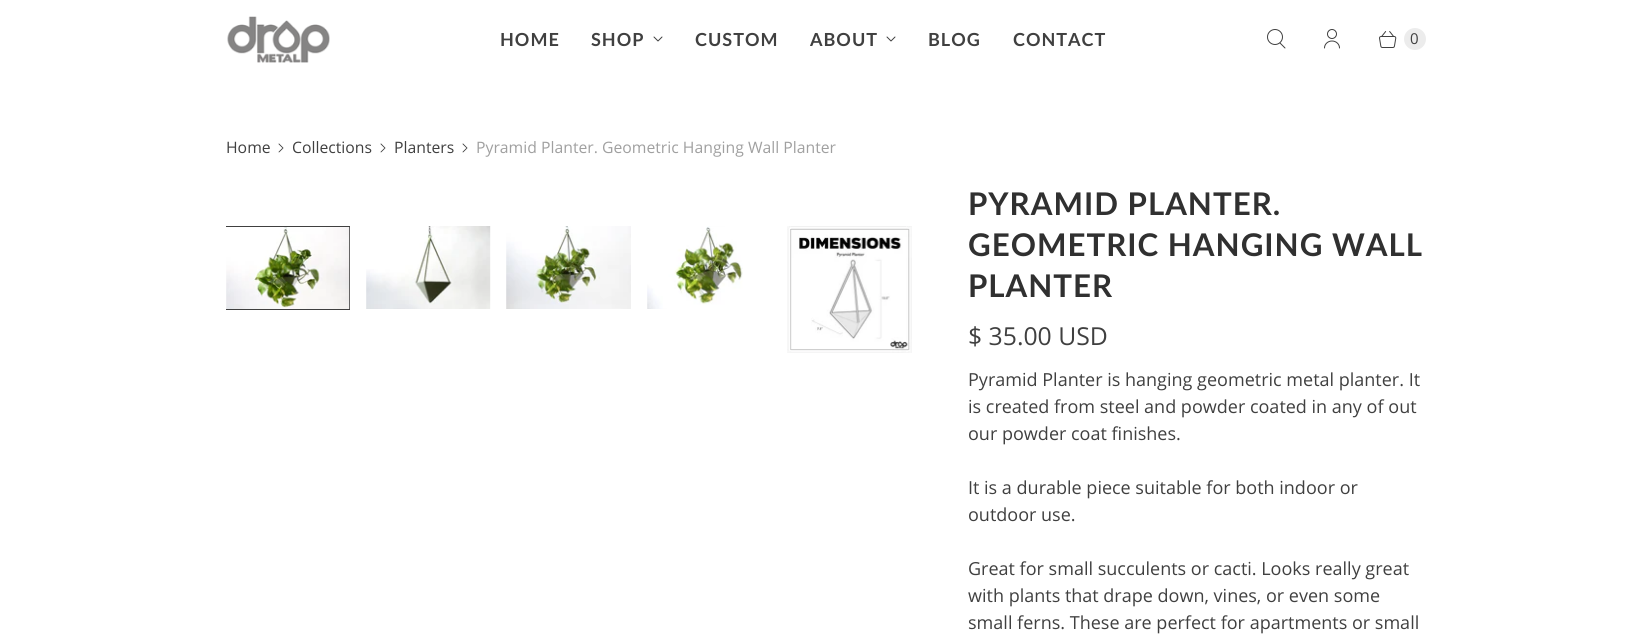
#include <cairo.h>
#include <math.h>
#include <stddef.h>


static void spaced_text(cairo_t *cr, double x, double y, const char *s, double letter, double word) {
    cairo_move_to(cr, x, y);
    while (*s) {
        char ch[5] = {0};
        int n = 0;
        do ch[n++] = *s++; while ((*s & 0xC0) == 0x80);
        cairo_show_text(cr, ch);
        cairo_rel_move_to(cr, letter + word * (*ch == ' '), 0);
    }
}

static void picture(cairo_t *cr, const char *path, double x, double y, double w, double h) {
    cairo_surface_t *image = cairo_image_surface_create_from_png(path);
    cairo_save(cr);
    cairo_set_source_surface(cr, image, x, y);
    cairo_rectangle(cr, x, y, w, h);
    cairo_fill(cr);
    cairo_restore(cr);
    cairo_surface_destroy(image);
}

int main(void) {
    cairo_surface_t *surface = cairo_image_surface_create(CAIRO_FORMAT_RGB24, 1651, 635);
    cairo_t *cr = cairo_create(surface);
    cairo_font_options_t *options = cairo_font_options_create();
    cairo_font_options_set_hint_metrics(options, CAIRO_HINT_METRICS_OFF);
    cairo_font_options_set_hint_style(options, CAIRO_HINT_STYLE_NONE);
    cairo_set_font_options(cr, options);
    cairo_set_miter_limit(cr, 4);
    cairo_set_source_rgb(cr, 1, 1, 1);
    cairo_paint(cr);
    picture(cr, "img1.png", 227, 16, 103, 47);
    cairo_select_font_face(cr, "Lato", CAIRO_FONT_SLANT_NORMAL, CAIRO_FONT_WEIGHT_BOLD);
    cairo_set_font_size(cr, 18);
    cairo_set_source_rgb(cr, 0.251, 0.251, 0.251);
    spaced_text(cr, 500, 46, "HOME", 1, 0);
    spaced_text(cr, 591, 46, "SHOP", 1, 0);
    picture(cr, "img2.png", 653, 36, 10, 6);
    spaced_text(cr, 695, 46, "CUSTOM", 1, 0);
    spaced_text(cr, 810, 46, "ABOUT", 1, 0);
    picture(cr, "img2.png", 886, 36, 10, 6);
    spaced_text(cr, 928, 46, "BLOG", 1, 0);
    spaced_text(cr, 1013, 46, "CONTACT", 1, 0);
    picture(cr, "img3.png", 1267, 29, 19, 20);
    picture(cr, "img4.png", 1324, 29, 16, 20);
    picture(cr, "img5.png", 1379, 31, 18, 17);
    cairo_set_source_rgb(cr, 0.925, 0.925, 0.925);
    cairo_arc(cr, 1415, 39, 11, 0, 2 * M_PI);
    cairo_fill(cr);
    cairo_select_font_face(cr, "Open Sans", CAIRO_FONT_SLANT_NORMAL, CAIRO_FONT_WEIGHT_NORMAL);
    cairo_set_font_size(cr, 15);
    cairo_set_source_rgb(cr, 0.251, 0.251, 0.251);
    cairo_move_to(cr, 1410, 44);
    cairo_show_text(cr, "0");
    cairo_set_font_size(cr, 15.75);
    cairo_move_to(cr, 226, 153);
    cairo_show_text(cr, "Home");
    picture(cr, "img6.png", 278, 143, 6, 10);
    cairo_move_to(cr, 292, 153);
    cairo_show_text(cr, "Collections");
    picture(cr, "img6.png", 380, 143, 6, 10);
    cairo_move_to(cr, 394, 153);
    cairo_show_text(cr, "Planters");
    picture(cr, "img6.png", 462, 143, 6, 10);
    cairo_set_source_rgb(cr, 0.627, 0.627, 0.627);
    cairo_move_to(cr, 476, 153);
    cairo_show_text(cr, "Pyramid Planter. Geometric Hanging Wall Planter");
    cairo_save(cr);
    cairo_rectangle(cr, 226, 226, 702, 156);
    cairo_clip(cr);
    cairo_rectangle(cr, 225.5, 226.5, 124, 83);
    cairo_set_source_rgb(cr, 0.251, 0.251, 0.251);
    cairo_set_line_width(cr, 1);
    cairo_stroke(cr);
    cairo_restore(cr);
    picture(cr, "img7.png", 226, 227, 124, 82);
    picture(cr, "img8.png", 366, 226, 125, 83);
    picture(cr, "img9.png", 506, 226, 125, 83);
    picture(cr, "img10.png", 647, 226, 96, 83);
    picture(cr, "img11.png", 787, 226, 125, 127);
    cairo_select_font_face(cr, "Lato", CAIRO_FONT_SLANT_NORMAL, CAIRO_FONT_WEIGHT_BOLD);
    cairo_set_font_size(cr, 31.25);
    cairo_set_source_rgb(cr, 0.188, 0.188, 0.188);
    spaced_text(cr, 968, 215, "PYRAMID PLANTER.", 1, 0);
    spaced_text(cr, 968, 256, "GEOMETRIC HANGING WALL", 1, 0);
    spaced_text(cr, 968, 297, "PLANTER", 1, 0);
    cairo_select_font_face(cr, "Open Sans", CAIRO_FONT_SLANT_NORMAL, CAIRO_FONT_WEIGHT_NORMAL);
    cairo_set_font_size(cr, 24.75);
    cairo_set_source_rgb(cr, 0.251, 0.251, 0.251);
    cairo_move_to(cr, 968, 345);
    cairo_show_text(cr, "$ 35.00 USD");
    cairo_set_font_size(cr, 18);
    cairo_move_to(cr, 968, 386);
    cairo_show_text(cr, "Pyramid Planter is hanging geometric metal planter. It");
    cairo_move_to(cr, 968, 413);
    cairo_show_text(cr, "is created from steel and powder coated in any of out");
    cairo_move_to(cr, 968, 440);
    cairo_show_text(cr, "our powder coat finishes.");
    cairo_move_to(cr, 968, 494);
    cairo_show_text(cr, "It is a durable piece suitable for both indoor or");
    cairo_move_to(cr, 968, 521);
    cairo_show_text(cr, "outdoor use.");
    cairo_move_to(cr, 968, 575);
    cairo_show_text(cr, "Great for small succulents or cacti. Looks really great");
    cairo_move_to(cr, 968, 602);
    cairo_show_text(cr, "with plants that drape down, vines, or even some");
    cairo_move_to(cr, 968, 629);
    cairo_show_text(cr, "small ferns. These are perfect for apartments or small");
    cairo_surface_write_to_png(surface, "page.png");
    cairo_font_options_destroy(options);
    cairo_destroy(cr);
    cairo_surface_destroy(surface);
    return 0;
}
